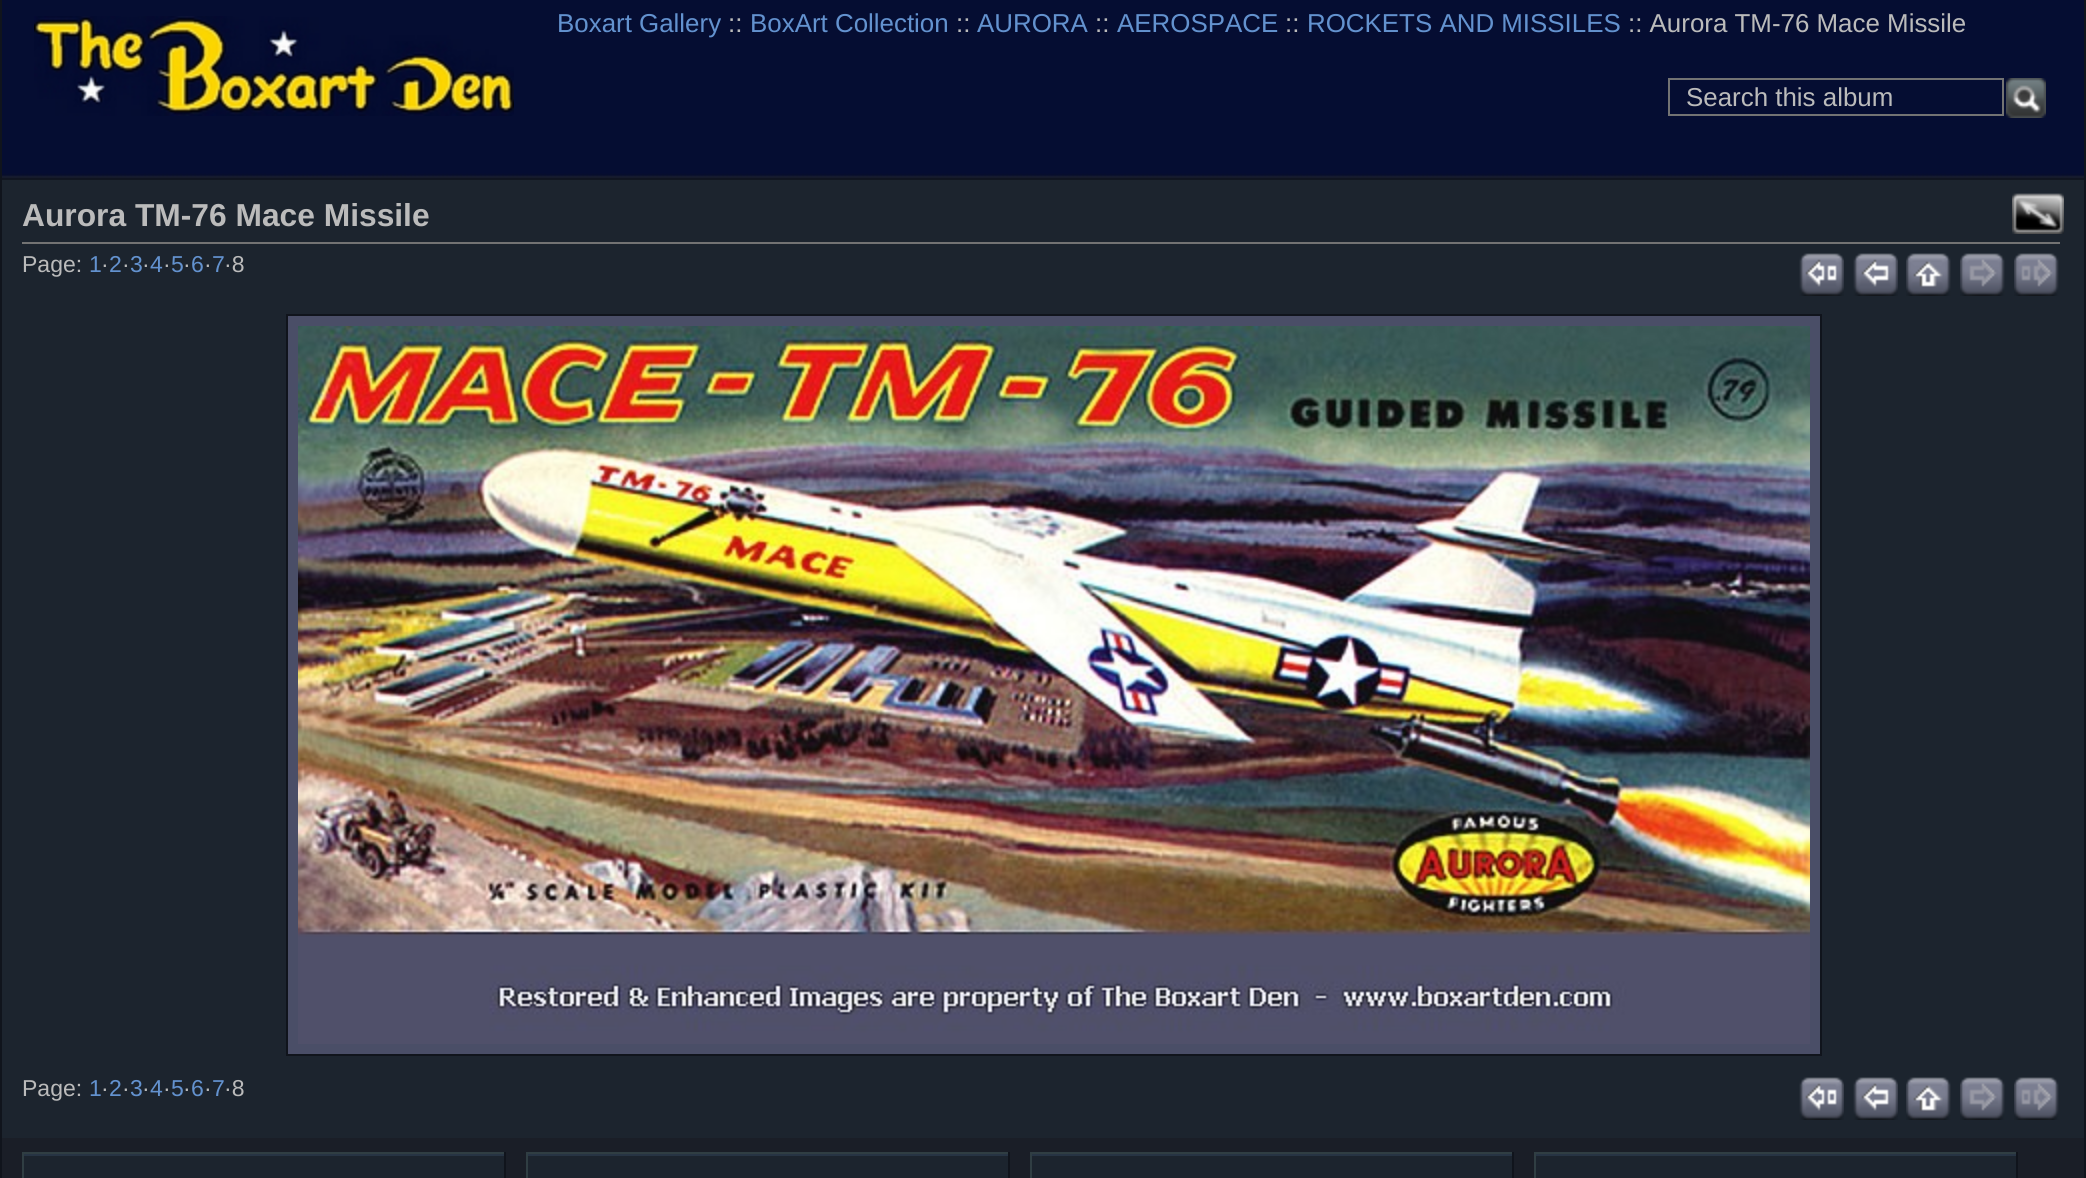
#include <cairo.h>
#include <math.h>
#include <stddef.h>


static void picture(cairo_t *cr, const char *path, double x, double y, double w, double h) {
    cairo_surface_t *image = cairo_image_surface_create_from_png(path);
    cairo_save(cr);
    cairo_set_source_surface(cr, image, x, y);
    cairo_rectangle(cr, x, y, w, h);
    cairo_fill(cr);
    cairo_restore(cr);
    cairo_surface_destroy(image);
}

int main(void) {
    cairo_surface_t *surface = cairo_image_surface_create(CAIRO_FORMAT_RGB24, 2086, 1178);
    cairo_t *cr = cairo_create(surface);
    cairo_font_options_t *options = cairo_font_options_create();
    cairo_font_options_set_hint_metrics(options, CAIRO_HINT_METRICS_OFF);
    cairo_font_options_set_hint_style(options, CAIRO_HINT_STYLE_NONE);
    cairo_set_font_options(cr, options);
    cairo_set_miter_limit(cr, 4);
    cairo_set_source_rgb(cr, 0.11, 0.141, 0.18);
    cairo_paint(cr);
    picture(cr, "img1.png", 2, 0, 2082, 180);
    picture(cr, "img2.png", 34, 16, 480, 100);
    cairo_select_font_face(cr, "Liberation Sans", CAIRO_FONT_SLANT_NORMAL, CAIRO_FONT_WEIGHT_NORMAL);
    cairo_set_font_size(cr, 25.9);
    cairo_set_source_rgb(cr, 0.388, 0.573, 0.812);
    cairo_move_to(cr, 557, 32);
    cairo_show_text(cr, "Boxart Gallery");
    cairo_set_source_rgb(cr, 0.733, 0.733, 0.733);
    cairo_move_to(cr, 728, 32);
    cairo_show_text(cr, "::");
    cairo_set_source_rgb(cr, 0.388, 0.573, 0.812);
    cairo_move_to(cr, 750, 32);
    cairo_show_text(cr, "BoxArt Collection");
    cairo_set_source_rgb(cr, 0.733, 0.733, 0.733);
    cairo_move_to(cr, 956, 32);
    cairo_show_text(cr, "::");
    cairo_set_source_rgb(cr, 0.388, 0.573, 0.812);
    cairo_move_to(cr, 977, 32);
    cairo_show_text(cr, "AURORA");
    cairo_set_source_rgb(cr, 0.733, 0.733, 0.733);
    cairo_move_to(cr, 1095, 32);
    cairo_show_text(cr, "::");
    cairo_set_source_rgb(cr, 0.388, 0.573, 0.812);
    cairo_move_to(cr, 1117, 32);
    cairo_show_text(cr, "AEROSPACE");
    cairo_set_source_rgb(cr, 0.733, 0.733, 0.733);
    cairo_move_to(cr, 1285, 32);
    cairo_show_text(cr, "::");
    cairo_set_source_rgb(cr, 0.388, 0.573, 0.812);
    cairo_move_to(cr, 1307, 32);
    cairo_show_text(cr, "ROCKETS AND MISSILES");
    cairo_set_source_rgb(cr, 0.733, 0.733, 0.733);
    cairo_move_to(cr, 1628, 32);
    cairo_show_text(cr, ":: Aurora TM-76 Mace Missile");
    cairo_rectangle(cr, 1669, 79, 334, 36);
    cairo_set_source_rgb(cr, 0.451, 0.451, 0.451);
    cairo_stroke(cr);
    cairo_set_source_rgb(cr, 0.733, 0.733, 0.733);
    cairo_move_to(cr, 1686, 106);
    cairo_show_text(cr, "Search this album");
    picture(cr, "img3.png", 2006, 78, 40, 40);
    cairo_set_source_rgb(cr, 0.063, 0.082, 0.11);
    cairo_rectangle(cr, 2084, 0, 2, 1178);
    cairo_fill(cr);
    cairo_rectangle(cr, 0, 0, 2, 1178);
    cairo_fill(cr);
    cairo_set_source_rgb(cr, 0.451, 0.451, 0.451);
    cairo_rectangle(cr, 22, 242, 2038, 2);
    cairo_fill(cr);
    cairo_select_font_face(cr, "Liberation Sans", CAIRO_FONT_SLANT_NORMAL, CAIRO_FONT_WEIGHT_BOLD);
    cairo_set_font_size(cr, 31.75);
    cairo_set_source_rgb(cr, 0.733, 0.733, 0.733);
    cairo_move_to(cr, 22, 226);
    cairo_show_text(cr, "Aurora TM-76 Mace Missile");
    cairo_select_font_face(cr, "Liberation Sans", CAIRO_FONT_SLANT_NORMAL, CAIRO_FONT_WEIGHT_NORMAL);
    cairo_set_font_size(cr, 23);
    cairo_move_to(cr, 22, 272);
    cairo_show_text(cr, "Page:");
    cairo_set_source_rgb(cr, 0.388, 0.573, 0.812);
    cairo_move_to(cr, 89, 272);
    cairo_show_text(cr, "1");
    cairo_set_source_rgb(cr, 0.733, 0.733, 0.733);
    cairo_move_to(cr, 101, 272);
    cairo_show_text(cr, "·");
    cairo_set_source_rgb(cr, 0.388, 0.573, 0.812);
    cairo_move_to(cr, 109, 272);
    cairo_show_text(cr, "2");
    cairo_set_source_rgb(cr, 0.733, 0.733, 0.733);
    cairo_move_to(cr, 122, 272);
    cairo_show_text(cr, "·");
    cairo_set_source_rgb(cr, 0.388, 0.573, 0.812);
    cairo_move_to(cr, 130, 272);
    cairo_show_text(cr, "3");
    cairo_set_source_rgb(cr, 0.733, 0.733, 0.733);
    cairo_move_to(cr, 142, 272);
    cairo_show_text(cr, "·");
    cairo_set_source_rgb(cr, 0.388, 0.573, 0.812);
    cairo_move_to(cr, 150, 272);
    cairo_show_text(cr, "4");
    cairo_set_source_rgb(cr, 0.733, 0.733, 0.733);
    cairo_move_to(cr, 163, 272);
    cairo_show_text(cr, "·");
    cairo_set_source_rgb(cr, 0.388, 0.573, 0.812);
    cairo_move_to(cr, 171, 272);
    cairo_show_text(cr, "5");
    cairo_set_source_rgb(cr, 0.733, 0.733, 0.733);
    cairo_move_to(cr, 183, 272);
    cairo_show_text(cr, "·");
    cairo_set_source_rgb(cr, 0.388, 0.573, 0.812);
    cairo_move_to(cr, 191, 272);
    cairo_show_text(cr, "6");
    cairo_set_source_rgb(cr, 0.733, 0.733, 0.733);
    cairo_move_to(cr, 204, 272);
    cairo_show_text(cr, "·");
    cairo_set_source_rgb(cr, 0.388, 0.573, 0.812);
    cairo_move_to(cr, 212, 272);
    cairo_show_text(cr, "7");
    cairo_set_source_rgb(cr, 0.733, 0.733, 0.733);
    cairo_move_to(cr, 224, 272);
    cairo_show_text(cr, "·8");
    picture(cr, "img4.png", 1799, 253, 45, 43);
    picture(cr, "img5.png", 1853, 253, 45, 43);
    picture(cr, "img6.png", 1906, 253, 45, 43);
    picture(cr, "img7.png", 1960, 253, 45, 43);
    picture(cr, "img8.png", 2014, 253, 45, 43);
    cairo_set_source_rgb(cr, 0.29, 0.306, 0.404);
    cairo_rectangle(cr, 287, 315, 1534, 740);
    cairo_fill_preserve(cr);
    cairo_set_source_rgb(cr, 0.063, 0.082, 0.11);
    cairo_stroke(cr);
    picture(cr, "img9.png", 298, 326, 1512, 718);
    cairo_set_source_rgb(cr, 0.733, 0.733, 0.733);
    cairo_move_to(cr, 22, 1096);
    cairo_show_text(cr, "Page:");
    cairo_set_source_rgb(cr, 0.388, 0.573, 0.812);
    cairo_move_to(cr, 89, 1096);
    cairo_show_text(cr, "1");
    cairo_set_source_rgb(cr, 0.733, 0.733, 0.733);
    cairo_move_to(cr, 101, 1096);
    cairo_show_text(cr, "·");
    cairo_set_source_rgb(cr, 0.388, 0.573, 0.812);
    cairo_move_to(cr, 109, 1096);
    cairo_show_text(cr, "2");
    cairo_set_source_rgb(cr, 0.733, 0.733, 0.733);
    cairo_move_to(cr, 122, 1096);
    cairo_show_text(cr, "·");
    cairo_set_source_rgb(cr, 0.388, 0.573, 0.812);
    cairo_move_to(cr, 130, 1096);
    cairo_show_text(cr, "3");
    cairo_set_source_rgb(cr, 0.733, 0.733, 0.733);
    cairo_move_to(cr, 142, 1096);
    cairo_show_text(cr, "·");
    cairo_set_source_rgb(cr, 0.388, 0.573, 0.812);
    cairo_move_to(cr, 150, 1096);
    cairo_show_text(cr, "4");
    cairo_set_source_rgb(cr, 0.733, 0.733, 0.733);
    cairo_move_to(cr, 163, 1096);
    cairo_show_text(cr, "·");
    cairo_set_source_rgb(cr, 0.388, 0.573, 0.812);
    cairo_move_to(cr, 171, 1096);
    cairo_show_text(cr, "5");
    cairo_set_source_rgb(cr, 0.733, 0.733, 0.733);
    cairo_move_to(cr, 183, 1096);
    cairo_show_text(cr, "·");
    cairo_set_source_rgb(cr, 0.388, 0.573, 0.812);
    cairo_move_to(cr, 191, 1096);
    cairo_show_text(cr, "6");
    cairo_set_source_rgb(cr, 0.733, 0.733, 0.733);
    cairo_move_to(cr, 204, 1096);
    cairo_show_text(cr, "·");
    cairo_set_source_rgb(cr, 0.388, 0.573, 0.812);
    cairo_move_to(cr, 212, 1096);
    cairo_show_text(cr, "7");
    cairo_set_source_rgb(cr, 0.733, 0.733, 0.733);
    cairo_move_to(cr, 224, 1096);
    cairo_show_text(cr, "·8");
    picture(cr, "img4.png", 1799, 1077, 45, 43);
    picture(cr, "img5.png", 1853, 1077, 45, 43);
    picture(cr, "img6.png", 1906, 1077, 45, 43);
    picture(cr, "img7.png", 1960, 1077, 45, 43);
    picture(cr, "img8.png", 2014, 1077, 45, 43);
    picture(cr, "img10.png", 2012, 193, 52, 41);
    cairo_set_source_rgb(cr, 0.102, 0.118, 0.153);
    cairo_rectangle(cr, 2, 1138, 2082, 40);
    cairo_fill(cr);
    cairo_set_source_rgb(cr, 0.188, 0.243, 0.263);
    cairo_rectangle(cr, 22, 1152, 484, 2);
    cairo_fill(cr);
    cairo_set_source_rgb(cr, 0.063, 0.082, 0.11);
    cairo_rectangle(cr, 504, 1152, 2, 26);
    cairo_fill(cr);
    cairo_set_source_rgb(cr, 0.188, 0.243, 0.263);
    cairo_rectangle(cr, 22, 1152, 2, 26);
    cairo_fill(cr);
    cairo_set_source_rgb(cr, 0.11, 0.141, 0.18);
    cairo_rectangle(cr, 24, 1156, 480, 22);
    cairo_fill(cr);
    cairo_set_source_rgb(cr, 0.153, 0.204, 0.267);
    cairo_rectangle(cr, 24, 1154, 480, 2);
    cairo_fill(cr);
    cairo_set_source_rgb(cr, 0.188, 0.243, 0.263);
    cairo_rectangle(cr, 526, 1152, 484, 2);
    cairo_fill(cr);
    cairo_set_source_rgb(cr, 0.063, 0.082, 0.11);
    cairo_rectangle(cr, 1008, 1152, 2, 26);
    cairo_fill(cr);
    cairo_set_source_rgb(cr, 0.188, 0.243, 0.263);
    cairo_rectangle(cr, 526, 1152, 2, 26);
    cairo_fill(cr);
    cairo_set_source_rgb(cr, 0.11, 0.141, 0.18);
    cairo_rectangle(cr, 528, 1156, 480, 22);
    cairo_fill(cr);
    cairo_set_source_rgb(cr, 0.153, 0.204, 0.267);
    cairo_rectangle(cr, 528, 1154, 480, 2);
    cairo_fill(cr);
    cairo_set_source_rgb(cr, 0.188, 0.243, 0.263);
    cairo_rectangle(cr, 1030, 1152, 484, 2);
    cairo_fill(cr);
    cairo_set_source_rgb(cr, 0.063, 0.082, 0.11);
    cairo_rectangle(cr, 1512, 1152, 2, 26);
    cairo_fill(cr);
    cairo_set_source_rgb(cr, 0.188, 0.243, 0.263);
    cairo_rectangle(cr, 1030, 1152, 2, 26);
    cairo_fill(cr);
    cairo_set_source_rgb(cr, 0.11, 0.141, 0.18);
    cairo_rectangle(cr, 1032, 1156, 480, 22);
    cairo_fill(cr);
    cairo_set_source_rgb(cr, 0.153, 0.204, 0.267);
    cairo_rectangle(cr, 1032, 1154, 480, 2);
    cairo_fill(cr);
    cairo_set_source_rgb(cr, 0.188, 0.243, 0.263);
    cairo_rectangle(cr, 1534, 1152, 484, 2);
    cairo_fill(cr);
    cairo_set_source_rgb(cr, 0.063, 0.082, 0.11);
    cairo_rectangle(cr, 2016, 1152, 2, 26);
    cairo_fill(cr);
    cairo_set_source_rgb(cr, 0.188, 0.243, 0.263);
    cairo_rectangle(cr, 1534, 1152, 2, 26);
    cairo_fill(cr);
    cairo_set_source_rgb(cr, 0.11, 0.141, 0.18);
    cairo_rectangle(cr, 1536, 1156, 480, 22);
    cairo_fill(cr);
    cairo_set_source_rgb(cr, 0.153, 0.204, 0.267);
    cairo_rectangle(cr, 1536, 1154, 480, 2);
    cairo_fill(cr);
    cairo_surface_write_to_png(surface, "page.png");
    cairo_font_options_destroy(options);
    cairo_destroy(cr);
    cairo_surface_destroy(surface);
    return 0;
}
